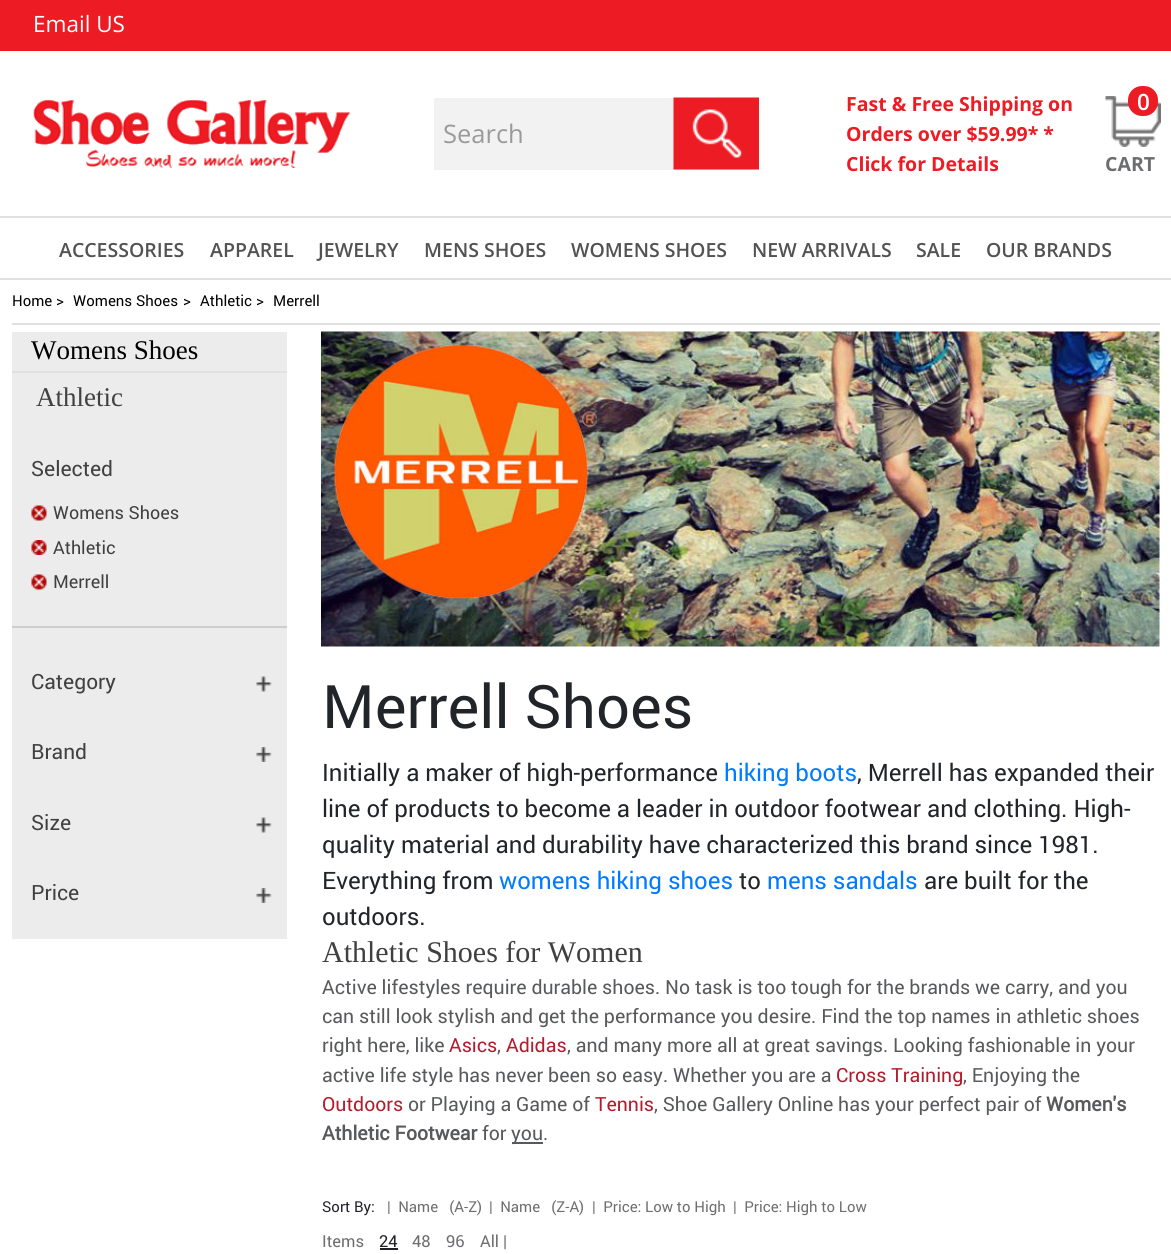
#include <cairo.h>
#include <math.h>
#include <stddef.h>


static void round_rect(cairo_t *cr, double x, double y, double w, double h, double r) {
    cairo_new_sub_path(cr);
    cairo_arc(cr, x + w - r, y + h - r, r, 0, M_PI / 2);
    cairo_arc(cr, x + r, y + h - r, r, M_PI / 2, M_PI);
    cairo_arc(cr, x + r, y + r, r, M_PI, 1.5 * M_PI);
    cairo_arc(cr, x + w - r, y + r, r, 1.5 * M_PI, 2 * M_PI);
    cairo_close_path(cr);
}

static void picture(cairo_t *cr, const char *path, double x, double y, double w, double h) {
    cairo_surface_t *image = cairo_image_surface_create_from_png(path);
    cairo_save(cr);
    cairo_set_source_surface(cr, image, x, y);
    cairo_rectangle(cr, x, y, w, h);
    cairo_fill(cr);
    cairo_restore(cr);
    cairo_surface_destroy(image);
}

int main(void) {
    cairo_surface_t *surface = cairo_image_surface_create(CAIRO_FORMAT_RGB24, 1171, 1254);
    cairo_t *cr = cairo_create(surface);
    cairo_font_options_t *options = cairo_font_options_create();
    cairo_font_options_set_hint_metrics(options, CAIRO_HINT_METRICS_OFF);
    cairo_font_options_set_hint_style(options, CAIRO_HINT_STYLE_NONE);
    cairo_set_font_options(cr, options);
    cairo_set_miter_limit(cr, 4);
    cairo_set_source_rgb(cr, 1, 1, 1);
    cairo_paint(cr);
    cairo_set_source_rgb(cr, 0.929, 0.11, 0.141);
    cairo_rectangle(cr, 0, 0, 1171, 51);
    cairo_fill(cr);
    cairo_select_font_face(cr, "Open Sans", CAIRO_FONT_SLANT_NORMAL, CAIRO_FONT_WEIGHT_NORMAL);
    cairo_set_font_size(cr, 22.5);
    cairo_set_source_rgb(cr, 1, 1, 1);
    cairo_move_to(cr, 33, 32);
    cairo_show_text(cr, "Email US");
    picture(cr, "img1.png", 33, 100, 317, 68);
    cairo_set_source_rgb(cr, 0.953, 0.949, 0.949);
    cairo_rectangle(cr, 434, 98, 325, 72);
    cairo_fill(cr);
    cairo_set_font_size(cr, 25.5);
    cairo_set_source_rgb(cr, 0.604, 0.604, 0.604);
    cairo_move_to(cr, 443, 143);
    cairo_show_text(cr, "Search");
    picture(cr, "img2.png", 673, 97, 86, 73);
    cairo_select_font_face(cr, "Open Sans", CAIRO_FONT_SLANT_NORMAL, CAIRO_FONT_WEIGHT_BOLD);
    cairo_set_font_size(cr, 19.5);
    cairo_set_source_rgb(cr, 0.929, 0.11, 0.141);
    cairo_move_to(cr, 846, 111);
    cairo_show_text(cr, "Fast & Free Shipping on");
    cairo_move_to(cr, 846, 141);
    cairo_show_text(cr, "Orders over $59.99* *");
    cairo_move_to(cr, 846, 171);
    cairo_show_text(cr, "Click for Details");
    picture(cr, "img3.png", 1105, 96, 56, 51);
    round_rect(cr, 1128, 86, 30, 30, 14);
    cairo_fill(cr);
    cairo_select_font_face(cr, "Open Sans SemiBold", CAIRO_FONT_SLANT_NORMAL, CAIRO_FONT_WEIGHT_NORMAL);
    cairo_set_font_size(cr, 22.5);
    cairo_set_source_rgb(cr, 1, 1, 1);
    cairo_move_to(cr, 1137, 110);
    cairo_show_text(cr, "0");
    cairo_select_font_face(cr, "Open Sans", CAIRO_FONT_SLANT_NORMAL, CAIRO_FONT_WEIGHT_BOLD);
    cairo_set_font_size(cr, 19.5);
    cairo_set_source_rgb(cr, 0.427, 0.431, 0.439);
    cairo_move_to(cr, 1105, 171);
    cairo_show_text(cr, "CART");
    cairo_set_source_rgb(cr, 0.882, 0.882, 0.882);
    cairo_rectangle(cr, 0, 216, 1171, 2);
    cairo_fill(cr);
    cairo_rectangle(cr, 0, 278, 1171, 2);
    cairo_fill(cr);
    cairo_select_font_face(cr, "Open Sans SemiBold", CAIRO_FONT_SLANT_NORMAL, CAIRO_FONT_WEIGHT_NORMAL);
    cairo_set_source_rgb(cr, 0.322, 0.322, 0.322);
    cairo_move_to(cr, 59, 257);
    cairo_show_text(cr, "ACCESSORIES");
    cairo_move_to(cr, 210, 257);
    cairo_show_text(cr, "APPAREL");
    cairo_move_to(cr, 318, 257);
    cairo_show_text(cr, "JEWELRY");
    cairo_move_to(cr, 424, 257);
    cairo_show_text(cr, "MENS SHOES");
    cairo_move_to(cr, 571, 257);
    cairo_show_text(cr, "WOMENS SHOES");
    cairo_move_to(cr, 752, 257);
    cairo_show_text(cr, "NEW ARRIVALS");
    cairo_move_to(cr, 916, 257);
    cairo_show_text(cr, "SALE");
    cairo_move_to(cr, 986, 257);
    cairo_show_text(cr, "OUR BRANDS");
    cairo_set_source_rgb(cr, 0.882, 0.882, 0.882);
    cairo_rectangle(cr, 12, 323, 1148, 2);
    cairo_fill(cr);
    cairo_select_font_face(cr, "Roboto", CAIRO_FONT_SLANT_NORMAL, CAIRO_FONT_WEIGHT_NORMAL);
    cairo_set_font_size(cr, 15);
    cairo_set_source_rgb(cr, 0, 0, 0);
    cairo_move_to(cr, 12, 306);
    cairo_show_text(cr, "Home");
    cairo_move_to(cr, 56, 306);
    cairo_show_text(cr, ">");
    cairo_move_to(cr, 73, 306);
    cairo_show_text(cr, "Womens Shoes");
    cairo_move_to(cr, 183, 306);
    cairo_show_text(cr, ">");
    cairo_move_to(cr, 200, 306);
    cairo_show_text(cr, "Athletic");
    cairo_move_to(cr, 256, 306);
    cairo_show_text(cr, ">");
    cairo_move_to(cr, 273, 306);
    cairo_show_text(cr, "Merrell");
    cairo_set_source_rgb(cr, 0.925, 0.925, 0.925);
    cairo_rectangle(cr, 12, 332, 275, 607);
    cairo_fill(cr);
    cairo_set_source_rgb(cr, 0.882, 0.882, 0.882);
    cairo_rectangle(cr, 12, 371, 275, 2);
    cairo_fill(cr);
    cairo_select_font_face(cr, "Liberation Serif", CAIRO_FONT_SLANT_NORMAL, CAIRO_FONT_WEIGHT_NORMAL);
    cairo_set_font_size(cr, 27);
    cairo_set_source_rgb(cr, 0, 0, 0);
    cairo_move_to(cr, 31, 359);
    cairo_show_text(cr, "Womens Shoes");
    cairo_set_source_rgb(cr, 0.251, 0.251, 0.255);
    cairo_move_to(cr, 36, 406);
    cairo_show_text(cr, "Athletic");
    cairo_select_font_face(cr, "Roboto", CAIRO_FONT_SLANT_NORMAL, CAIRO_FONT_WEIGHT_NORMAL);
    cairo_set_font_size(cr, 21);
    cairo_move_to(cr, 31, 476);
    cairo_show_text(cr, "Selected");
    picture(cr, "img4.png", 31, 505, 16, 16);
    cairo_set_font_size(cr, 18);
    cairo_move_to(cr, 53, 519);
    cairo_show_text(cr, "Womens Shoes");
    picture(cr, "img5.png", 31, 540, 16, 15);
    cairo_move_to(cr, 53, 554);
    cairo_show_text(cr, "Athletic");
    picture(cr, "img4.png", 31, 574, 16, 16);
    cairo_move_to(cr, 53, 588);
    cairo_show_text(cr, "Merrell");
    cairo_set_source_rgb(cr, 0.812, 0.808, 0.808);
    cairo_rectangle(cr, 12, 626, 275, 2);
    cairo_fill(cr);
    cairo_set_font_size(cr, 21);
    cairo_set_source_rgb(cr, 0.251, 0.251, 0.255);
    cairo_move_to(cr, 31, 689);
    cairo_show_text(cr, "Category");
    picture(cr, "img6.png", 256, 676, 16, 16);
    cairo_move_to(cr, 31, 759);
    cairo_show_text(cr, "Brand");
    picture(cr, "img7.png", 256, 747, 16, 15);
    cairo_move_to(cr, 31, 830);
    cairo_show_text(cr, "Size");
    picture(cr, "img6.png", 256, 817, 16, 16);
    cairo_move_to(cr, 31, 900);
    cairo_show_text(cr, "Price");
    picture(cr, "img7.png", 256, 888, 16, 15);
    picture(cr, "img8.png", 321, 331, 839, 316);
    cairo_set_font_size(cr, 60);
    cairo_set_source_rgb(cr, 0.129, 0.145, 0.161);
    cairo_move_to(cr, 322, 728);
    cairo_show_text(cr, "Merrell Shoes");
    cairo_set_font_size(cr, 24);
    cairo_move_to(cr, 322, 781);
    cairo_show_text(cr, "Initially a maker of high-performance");
    cairo_set_source_rgb(cr, 0, 0.482, 1);
    cairo_move_to(cr, 724, 781);
    cairo_show_text(cr, "hiking boots");
    cairo_set_source_rgb(cr, 0.129, 0.145, 0.161);
    cairo_move_to(cr, 857, 781);
    cairo_show_text(cr, ", Merrell has expanded their");
    cairo_move_to(cr, 322, 817);
    cairo_show_text(cr, "line of products to become a leader in outdoor footwear and clothing. High-");
    cairo_move_to(cr, 322, 853);
    cairo_show_text(cr, "quality material and durability have characterized this brand since 1981.");
    cairo_move_to(cr, 322, 889);
    cairo_show_text(cr, "Everything from");
    cairo_set_source_rgb(cr, 0, 0.482, 1);
    cairo_move_to(cr, 499, 889);
    cairo_show_text(cr, "womens hiking shoes");
    cairo_set_source_rgb(cr, 0.129, 0.145, 0.161);
    cairo_move_to(cr, 739, 889);
    cairo_show_text(cr, "to");
    cairo_set_source_rgb(cr, 0, 0.482, 1);
    cairo_move_to(cr, 767, 889);
    cairo_show_text(cr, "mens sandals");
    cairo_set_source_rgb(cr, 0.129, 0.145, 0.161);
    cairo_move_to(cr, 924, 889);
    cairo_show_text(cr, "are built for the");
    cairo_move_to(cr, 322, 925);
    cairo_show_text(cr, "outdoors.");
    cairo_select_font_face(cr, "Liberation Serif", CAIRO_FONT_SLANT_NORMAL, CAIRO_FONT_WEIGHT_NORMAL);
    cairo_set_font_size(cr, 30);
    cairo_set_source_rgb(cr, 0.251, 0.251, 0.255);
    cairo_move_to(cr, 322, 962);
    cairo_show_text(cr, "Athletic Shoes for Women");
    cairo_select_font_face(cr, "Roboto", CAIRO_FONT_SLANT_NORMAL, CAIRO_FONT_WEIGHT_NORMAL);
    cairo_set_font_size(cr, 19.5);
    cairo_set_source_rgb(cr, 0.345, 0.349, 0.357);
    cairo_move_to(cr, 322, 994);
    cairo_show_text(cr, "Active lifestyles require durable shoes. No task is too tough for the brands we carry, and you");
    cairo_move_to(cr, 322, 1023);
    cairo_show_text(cr, "can still look stylish and get the performance you desire. Find the top names in athletic shoes");
    cairo_move_to(cr, 322, 1052);
    cairo_show_text(cr, "right here, like");
    cairo_set_source_rgb(cr, 0.698, 0.11, 0.173);
    cairo_move_to(cr, 449, 1052);
    cairo_show_text(cr, "Asics");
    cairo_set_source_rgb(cr, 0.345, 0.349, 0.357);
    cairo_move_to(cr, 497, 1052);
    cairo_show_text(cr, ",");
    cairo_set_source_rgb(cr, 0.698, 0.11, 0.173);
    cairo_move_to(cr, 506, 1052);
    cairo_show_text(cr, "Adidas");
    cairo_set_source_rgb(cr, 0.345, 0.349, 0.357);
    cairo_move_to(cr, 567, 1052);
    cairo_show_text(cr, ", and many more all at great savings. Looking fashionable in your");
    cairo_move_to(cr, 322, 1082);
    cairo_show_text(cr, "active life style has never been so easy. Whether you are a");
    cairo_set_source_rgb(cr, 0.698, 0.11, 0.173);
    cairo_move_to(cr, 836, 1082);
    cairo_show_text(cr, "Cross Training");
    cairo_set_source_rgb(cr, 0.345, 0.349, 0.357);
    cairo_move_to(cr, 963, 1082);
    cairo_show_text(cr, ", Enjoying the");
    cairo_set_source_rgb(cr, 0.698, 0.11, 0.173);
    cairo_move_to(cr, 322, 1111);
    cairo_show_text(cr, "Outdoors");
    cairo_set_source_rgb(cr, 0.345, 0.349, 0.357);
    cairo_move_to(cr, 408, 1111);
    cairo_show_text(cr, "or Playing a Game of");
    cairo_set_source_rgb(cr, 0.698, 0.11, 0.173);
    cairo_move_to(cr, 595, 1111);
    cairo_show_text(cr, "Tennis");
    cairo_set_source_rgb(cr, 0.345, 0.349, 0.357);
    cairo_move_to(cr, 654, 1111);
    cairo_show_text(cr, ", Shoe Gallery Online has your perfect pair of");
    cairo_select_font_face(cr, "Roboto", CAIRO_FONT_SLANT_NORMAL, CAIRO_FONT_WEIGHT_BOLD);
    cairo_move_to(cr, 1046, 1111);
    cairo_show_text(cr, "Women's");
    cairo_move_to(cr, 322, 1140);
    cairo_show_text(cr, "Athletic Footwear");
    cairo_select_font_face(cr, "Roboto", CAIRO_FONT_SLANT_NORMAL, CAIRO_FONT_WEIGHT_NORMAL);
    cairo_move_to(cr, 482, 1140);
    cairo_show_text(cr, "for");
    cairo_rectangle(cr, 512, 1142, 31, 2);
    cairo_fill(cr);
    cairo_move_to(cr, 511, 1140);
    cairo_show_text(cr, "you.");
    cairo_set_font_size(cr, 15);
    cairo_set_source_rgb(cr, 0.137, 0.122, 0.153);
    cairo_move_to(cr, 322, 1212);
    cairo_show_text(cr, "Sort By:");
    cairo_set_source_rgb(cr, 0.427, 0.431, 0.439);
    cairo_move_to(cr, 387, 1212);
    cairo_show_text(cr, "|  Name   (A-Z)");
    cairo_move_to(cr, 489, 1212);
    cairo_show_text(cr, "|  Name   (Z-A)");
    cairo_move_to(cr, 592, 1212);
    cairo_show_text(cr, "|  Price: Low to High");
    cairo_move_to(cr, 733, 1212);
    cairo_show_text(cr, "|  Price: High to Low");
    cairo_set_font_size(cr, 16.5);
    cairo_move_to(cr, 322, 1247);
    cairo_show_text(cr, "Items");
    cairo_set_source_rgb(cr, 0.137, 0.122, 0.153);
    cairo_move_to(cr, 379, 1247);
    cairo_show_text(cr, "24");
    cairo_rectangle(cr, 380, 1248, 18, 2);
    cairo_fill(cr);
    cairo_set_source_rgb(cr, 0.427, 0.431, 0.439);
    cairo_move_to(cr, 412, 1247);
    cairo_show_text(cr, "48");
    cairo_move_to(cr, 446, 1247);
    cairo_show_text(cr, "96");
    cairo_move_to(cr, 480, 1247);
    cairo_show_text(cr, "All |");
    cairo_surface_write_to_png(surface, "page.png");
    cairo_font_options_destroy(options);
    cairo_destroy(cr);
    cairo_surface_destroy(surface);
    return 0;
}
